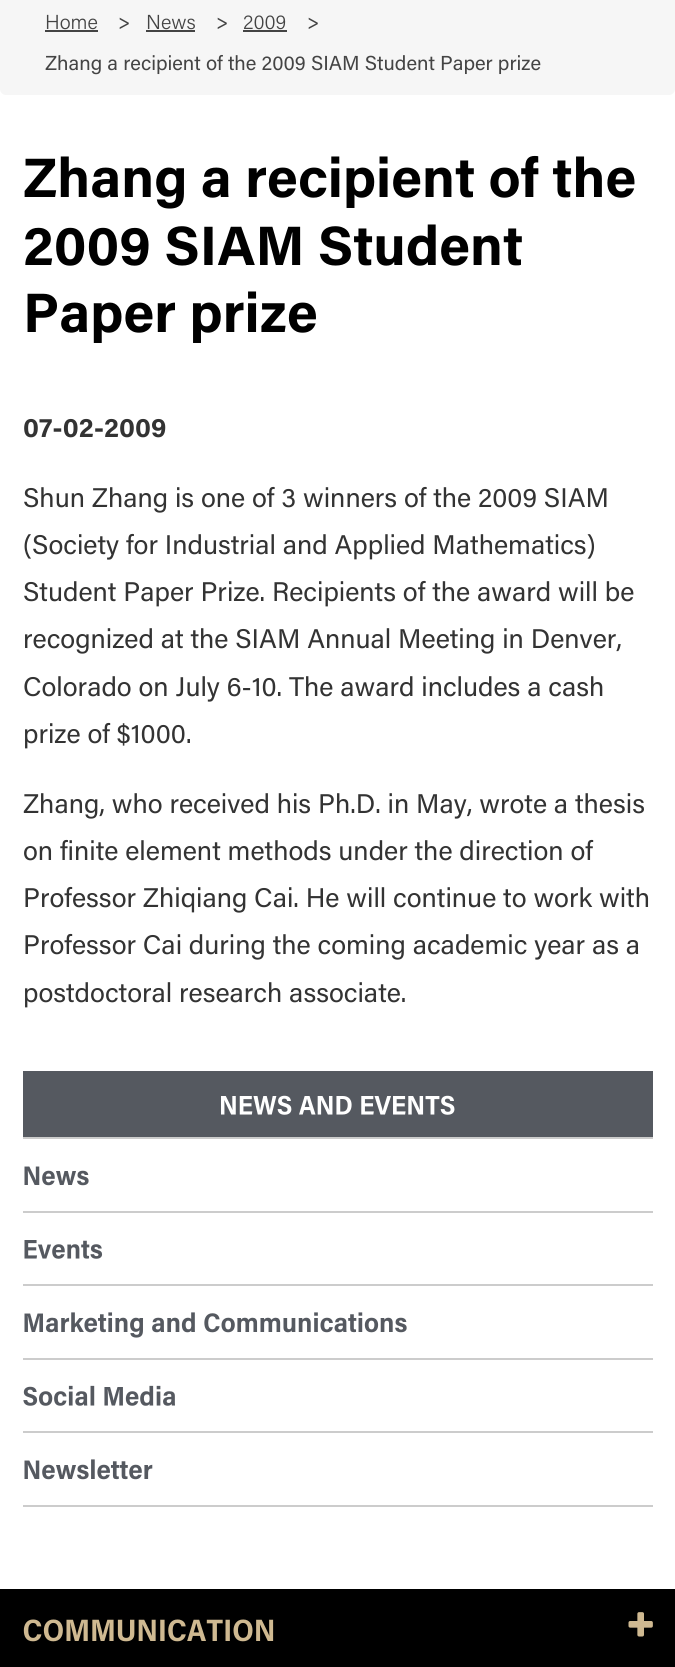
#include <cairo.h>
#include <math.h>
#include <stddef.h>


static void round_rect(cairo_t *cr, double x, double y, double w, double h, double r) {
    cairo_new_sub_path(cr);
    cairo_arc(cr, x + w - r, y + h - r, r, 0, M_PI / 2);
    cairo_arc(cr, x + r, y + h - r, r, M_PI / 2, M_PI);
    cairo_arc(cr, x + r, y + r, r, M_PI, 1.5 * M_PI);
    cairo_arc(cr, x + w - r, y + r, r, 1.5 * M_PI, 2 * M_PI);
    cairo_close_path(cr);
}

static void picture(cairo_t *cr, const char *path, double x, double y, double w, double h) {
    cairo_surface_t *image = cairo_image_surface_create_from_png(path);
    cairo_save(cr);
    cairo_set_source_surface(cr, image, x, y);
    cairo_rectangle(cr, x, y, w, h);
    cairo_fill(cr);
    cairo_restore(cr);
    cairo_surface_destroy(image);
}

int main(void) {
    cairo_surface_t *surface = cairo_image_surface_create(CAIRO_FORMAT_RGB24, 675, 1667);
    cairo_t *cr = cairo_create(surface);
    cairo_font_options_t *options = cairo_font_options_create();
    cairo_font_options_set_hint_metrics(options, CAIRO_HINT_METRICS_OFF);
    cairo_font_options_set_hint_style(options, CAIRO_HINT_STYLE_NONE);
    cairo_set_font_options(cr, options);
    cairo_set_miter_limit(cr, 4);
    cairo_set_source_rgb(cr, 1, 1, 1);
    cairo_paint(cr);
    cairo_set_source_rgb(cr, 0.961, 0.961, 0.961);
    round_rect(cr, 0, -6, 675, 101, 6);
    cairo_fill(cr);
    cairo_select_font_face(cr, "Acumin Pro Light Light", CAIRO_FONT_SLANT_NORMAL, CAIRO_FONT_WEIGHT_NORMAL);
    cairo_set_font_size(cr, 20.25);
    cairo_set_source_rgb(cr, 0.267, 0.267, 0.267);
    cairo_move_to(cr, 45, 29);
    cairo_show_text(cr, "Home");
    cairo_rectangle(cr, 45, 30, 53, 2);
    cairo_fill(cr);
    cairo_select_font_face(cr, "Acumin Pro", CAIRO_FONT_SLANT_NORMAL, CAIRO_FONT_WEIGHT_NORMAL);
    cairo_move_to(cr, 118, 29);
    cairo_show_text(cr, ">");
    cairo_select_font_face(cr, "Acumin Pro Light Light", CAIRO_FONT_SLANT_NORMAL, CAIRO_FONT_WEIGHT_NORMAL);
    cairo_move_to(cr, 146, 29);
    cairo_show_text(cr, "News");
    cairo_rectangle(cr, 146, 30, 49, 2);
    cairo_fill(cr);
    cairo_select_font_face(cr, "Acumin Pro", CAIRO_FONT_SLANT_NORMAL, CAIRO_FONT_WEIGHT_NORMAL);
    cairo_move_to(cr, 216, 29);
    cairo_show_text(cr, ">");
    cairo_select_font_face(cr, "Acumin Pro Light Light", CAIRO_FONT_SLANT_NORMAL, CAIRO_FONT_WEIGHT_NORMAL);
    cairo_move_to(cr, 243, 29);
    cairo_show_text(cr, "2009");
    cairo_rectangle(cr, 243, 30, 44, 2);
    cairo_fill(cr);
    cairo_select_font_face(cr, "Acumin Pro", CAIRO_FONT_SLANT_NORMAL, CAIRO_FONT_WEIGHT_NORMAL);
    cairo_move_to(cr, 307, 29);
    cairo_show_text(cr, ">");
    cairo_move_to(cr, 45, 70);
    cairo_show_text(cr, "Zhang a recipient of the 2009 SIAM Student Paper prize");
    cairo_select_font_face(cr, "Acumin Pro", CAIRO_FONT_SLANT_NORMAL, CAIRO_FONT_WEIGHT_BOLD);
    cairo_set_font_size(cr, 55.5);
    cairo_set_source_rgb(cr, 0, 0, 0);
    cairo_move_to(cr, 23, 197);
    cairo_show_text(cr, "Zhang a recipient of the");
    cairo_move_to(cr, 23, 265);
    cairo_show_text(cr, "2009 SIAM Student");
    cairo_move_to(cr, 23, 332);
    cairo_show_text(cr, "Paper prize");
    cairo_set_font_size(cr, 27);
    cairo_set_source_rgb(cr, 0.2, 0.2, 0.2);
    cairo_move_to(cr, 23, 437);
    cairo_show_text(cr, "07-02-2009");
    cairo_select_font_face(cr, "Acumin Pro", CAIRO_FONT_SLANT_NORMAL, CAIRO_FONT_WEIGHT_NORMAL);
    cairo_move_to(cr, 23, 507);
    cairo_show_text(cr, "Shun Zhang is one of 3 winners of the 2009 SIAM");
    cairo_move_to(cr, 23, 554);
    cairo_show_text(cr, "(Society for Industrial and Applied Mathematics)");
    cairo_move_to(cr, 23, 601);
    cairo_show_text(cr, "Student Paper Prize. Recipients of the award will be");
    cairo_move_to(cr, 23, 648);
    cairo_show_text(cr, "recognized at the SIAM Annual Meeting in Denver,");
    cairo_move_to(cr, 23, 696);
    cairo_show_text(cr, "Colorado on July 6-10. The award includes a cash");
    cairo_move_to(cr, 23, 743);
    cairo_show_text(cr, "prize of $1000.");
    cairo_move_to(cr, 23, 813);
    cairo_show_text(cr, "Zhang, who received his Ph.D. in May, wrote a thesis");
    cairo_move_to(cr, 23, 860);
    cairo_show_text(cr, "on finite element methods under the direction of");
    cairo_move_to(cr, 23, 907);
    cairo_show_text(cr, "Professor Zhiqiang Cai. He will continue to work with");
    cairo_move_to(cr, 23, 954);
    cairo_show_text(cr, "Professor Cai during the coming academic year as a");
    cairo_move_to(cr, 23, 1002);
    cairo_show_text(cr, "postdoctoral research associate.");
    cairo_set_source_rgb(cr, 0.333, 0.349, 0.376);
    cairo_rectangle(cr, 23, 1071, 630, 66);
    cairo_fill(cr);
    cairo_set_source_rgb(cr, 0.8, 0.8, 0.8);
    cairo_rectangle(cr, 23, 1137, 630, 2);
    cairo_fill(cr);
    picture(cr, "img1.png", 221, 1095, 234, 20);
    cairo_rectangle(cr, 23, 1211, 630, 2);
    cairo_fill(cr);
    picture(cr, "img2.png", 24, 1166, 65, 20);
    cairo_rectangle(cr, 23, 1284, 630, 2);
    cairo_fill(cr);
    picture(cr, "img3.png", 24, 1240, 79, 19);
    cairo_rectangle(cr, 23, 1358, 630, 2);
    cairo_fill(cr);
    picture(cr, "img4.png", 24, 1312, 383, 26);
    cairo_rectangle(cr, 23, 1431, 630, 2);
    cairo_fill(cr);
    picture(cr, "img5.png", 23, 1385, 152, 21);
    cairo_rectangle(cr, 23, 1505, 630, 2);
    cairo_fill(cr);
    picture(cr, "img6.png", 24, 1459, 129, 21);
    cairo_set_source_rgb(cr, 0, 0, 0);
    cairo_rectangle(cr, 0, 1589, 675, 78);
    cairo_fill(cr);
    picture(cr, "img7.png", 23, 1619, 251, 23);
    picture(cr, "img8.png", 628, 1612, 25, 25);
    cairo_surface_write_to_png(surface, "page.png");
    cairo_font_options_destroy(options);
    cairo_destroy(cr);
    cairo_surface_destroy(surface);
    return 0;
}
